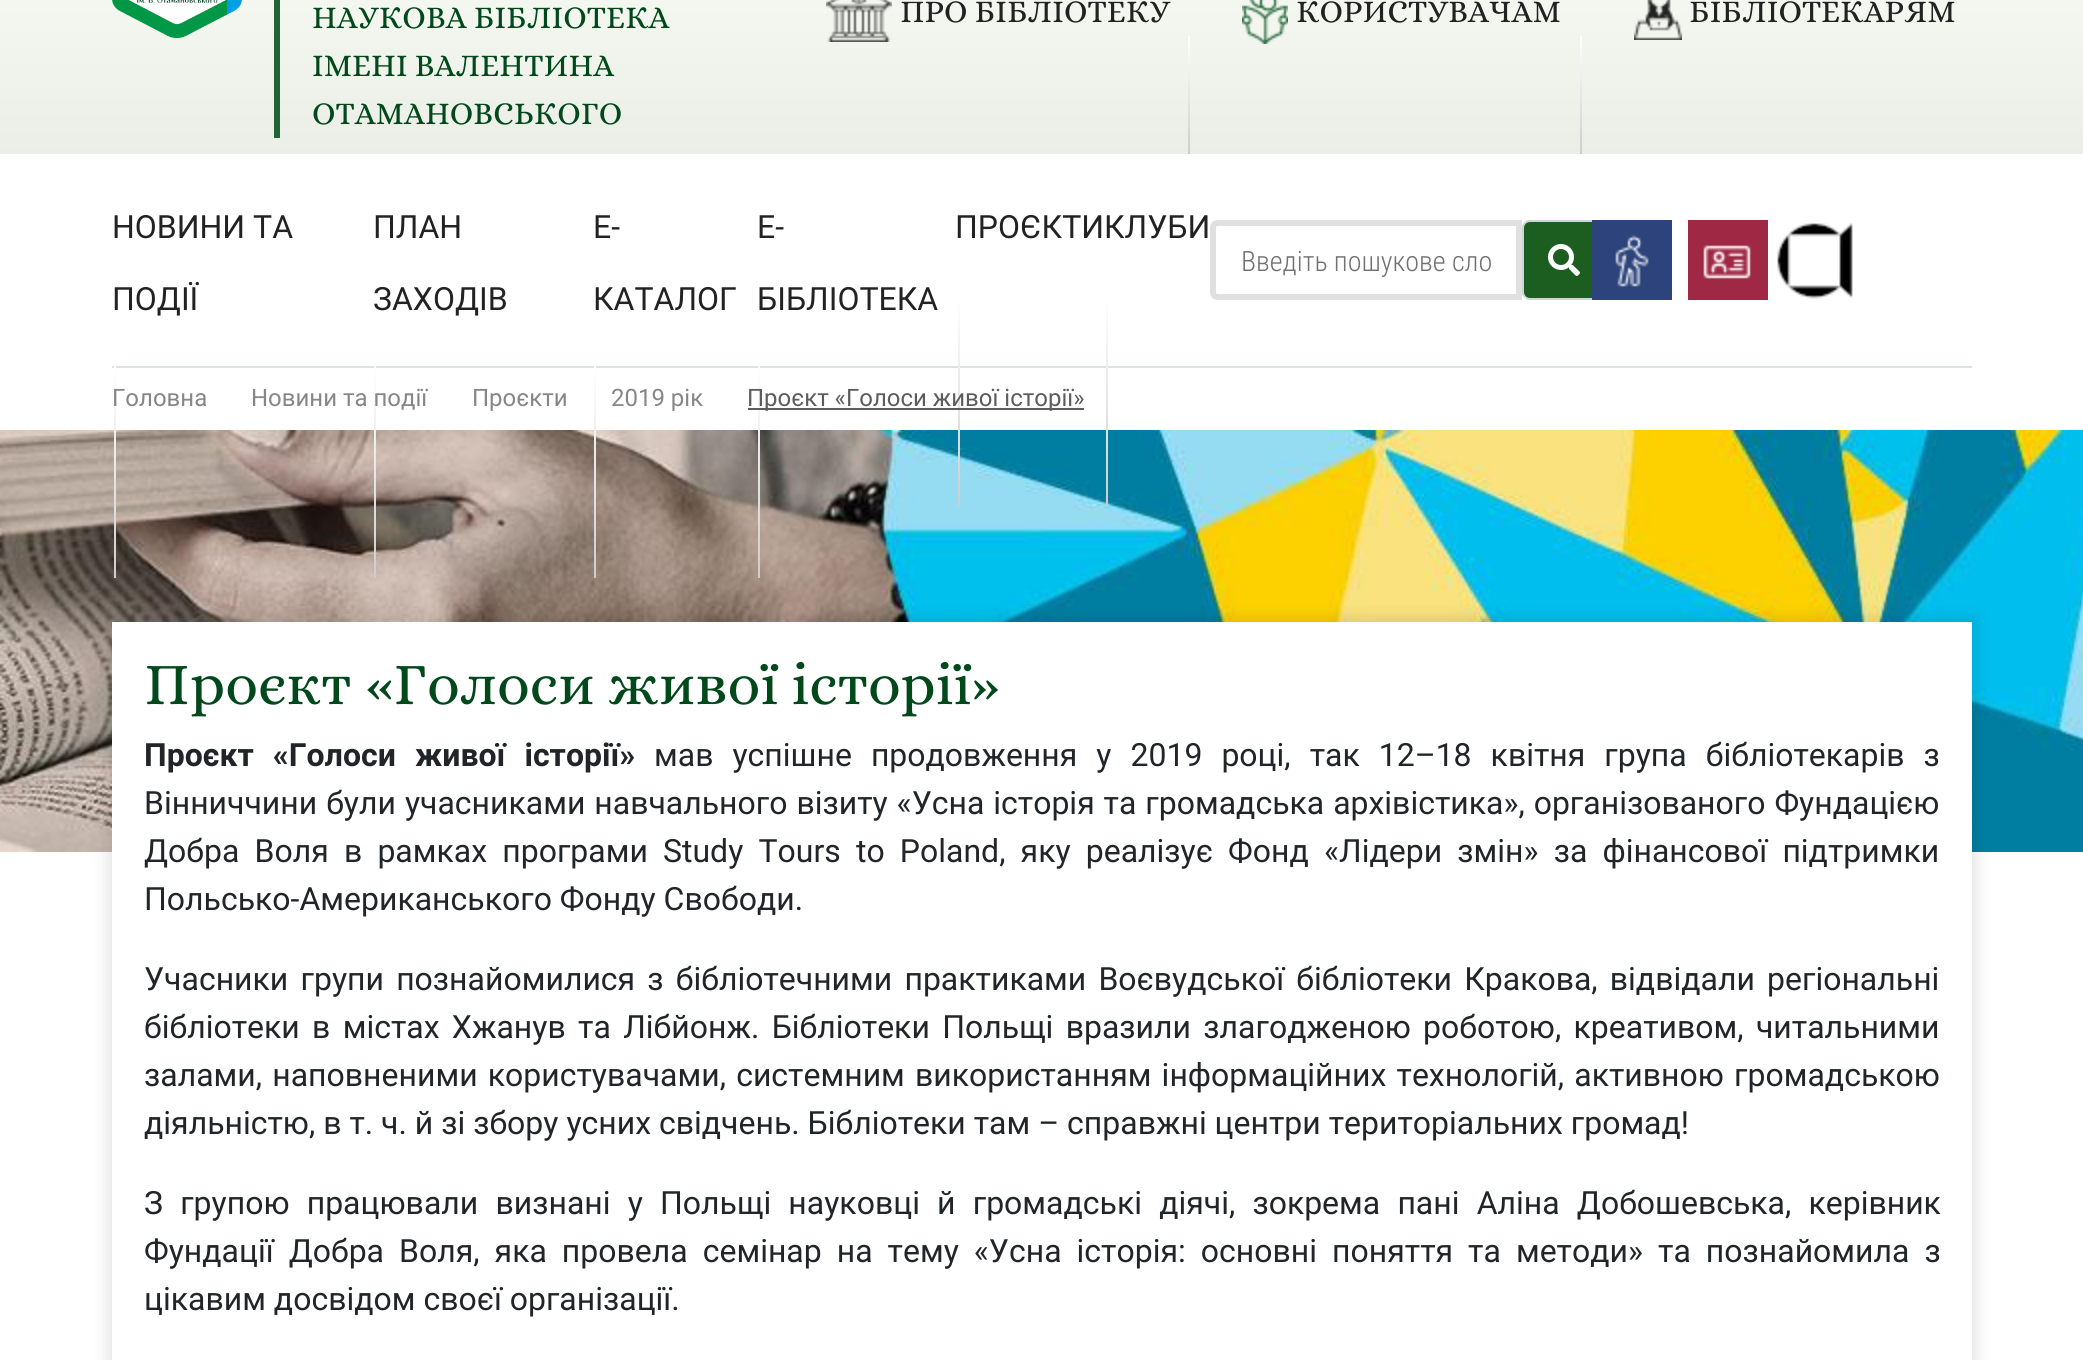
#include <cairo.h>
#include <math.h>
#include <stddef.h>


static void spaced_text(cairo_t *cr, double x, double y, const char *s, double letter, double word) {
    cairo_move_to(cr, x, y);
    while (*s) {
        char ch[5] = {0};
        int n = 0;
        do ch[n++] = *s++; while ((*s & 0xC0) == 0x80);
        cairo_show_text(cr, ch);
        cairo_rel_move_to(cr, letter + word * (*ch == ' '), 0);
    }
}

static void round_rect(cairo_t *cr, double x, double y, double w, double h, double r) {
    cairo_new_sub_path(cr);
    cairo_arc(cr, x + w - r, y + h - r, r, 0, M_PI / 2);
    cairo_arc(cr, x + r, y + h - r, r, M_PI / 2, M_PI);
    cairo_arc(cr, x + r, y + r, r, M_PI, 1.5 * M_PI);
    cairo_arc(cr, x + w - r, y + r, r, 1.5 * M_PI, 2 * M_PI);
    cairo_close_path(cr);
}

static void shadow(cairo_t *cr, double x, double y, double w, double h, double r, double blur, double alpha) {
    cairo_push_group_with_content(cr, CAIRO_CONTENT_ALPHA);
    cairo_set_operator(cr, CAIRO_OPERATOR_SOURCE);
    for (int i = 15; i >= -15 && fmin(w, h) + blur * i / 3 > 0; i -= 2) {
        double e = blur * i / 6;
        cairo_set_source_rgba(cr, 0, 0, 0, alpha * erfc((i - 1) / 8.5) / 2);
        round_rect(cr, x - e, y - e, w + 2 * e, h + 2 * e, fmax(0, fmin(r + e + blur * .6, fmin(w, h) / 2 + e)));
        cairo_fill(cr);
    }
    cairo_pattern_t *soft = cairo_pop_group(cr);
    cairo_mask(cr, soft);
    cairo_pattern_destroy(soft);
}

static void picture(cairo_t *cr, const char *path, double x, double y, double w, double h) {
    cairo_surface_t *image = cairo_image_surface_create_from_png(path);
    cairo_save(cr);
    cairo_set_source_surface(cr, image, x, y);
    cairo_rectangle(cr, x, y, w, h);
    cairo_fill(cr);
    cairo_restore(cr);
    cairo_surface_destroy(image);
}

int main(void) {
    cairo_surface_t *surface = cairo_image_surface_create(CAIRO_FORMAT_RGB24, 2083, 1360);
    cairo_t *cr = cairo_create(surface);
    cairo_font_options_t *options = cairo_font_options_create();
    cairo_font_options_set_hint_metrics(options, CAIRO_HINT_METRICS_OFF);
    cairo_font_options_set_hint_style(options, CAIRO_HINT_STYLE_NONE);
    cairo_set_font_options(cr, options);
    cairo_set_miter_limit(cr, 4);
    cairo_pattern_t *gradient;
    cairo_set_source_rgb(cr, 1, 1, 1);
    cairo_paint(cr);
    gradient = cairo_pattern_create_linear(1042, 154, 1042, -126);
    cairo_pattern_add_color_stop_rgba(gradient, 0, 0.922, 0.933, 0.906, 1);
    cairo_pattern_add_color_stop_rgba(gradient, 1, 0.988, 1, 0.973, 1);
    cairo_set_source(cr, gradient);
    cairo_pattern_destroy(gradient);
    cairo_rectangle(cr, 0, 0, 2083, 154);
    cairo_fill(cr);
    picture(cr, "img1.png", 112, 0, 130, 38);
    cairo_set_source_rgb(cr, 0.122, 0.388, 0.216);
    cairo_rectangle(cr, 274, 0, 6, 138);
    cairo_fill(cr);
    cairo_select_font_face(cr, "Alice", CAIRO_FONT_SLANT_NORMAL, CAIRO_FONT_WEIGHT_NORMAL);
    cairo_set_font_size(cr, 32);
    cairo_set_source_rgb(cr, 0.004, 0.286, 0.106);
    cairo_move_to(cr, 312, 28);
    cairo_show_text(cr, "НАУКОВА БІБЛІОТЕКА");
    cairo_move_to(cr, 312, 76);
    cairo_show_text(cr, "ІМЕНІ ВАЛЕНТИНА");
    cairo_move_to(cr, 312, 124);
    cairo_show_text(cr, "ОТАМАНОВСЬКОГО");
    picture(cr, "img2.png", 826, 0, 66, 42);
    cairo_set_source_rgb(cr, 0.133, 0.133, 0.133);
    cairo_move_to(cr, 900, 22);
    cairo_show_text(cr, "ПРО БІБЛІОТЕКУ");
    picture(cr, "img3.png", 1242, 0, 46, 44);
    cairo_move_to(cr, 1296, 22);
    cairo_show_text(cr, "КОРИСТУВАЧАМ");
    gradient = cairo_pattern_create_linear(1189, 154, 1189, 36);
    cairo_pattern_add_color_stop_rgba(gradient, 0, 0.804, 0.804, 0.804, 1);
    cairo_pattern_add_color_stop_rgba(gradient, 1, 1, 1, 1, 1);
    cairo_set_source(cr, gradient);
    cairo_pattern_destroy(gradient);
    cairo_rectangle(cr, 1188, 36, 2, 118);
    cairo_fill(cr);
    picture(cr, "img4.png", 1634, 0, 48, 40);
    cairo_set_source_rgb(cr, 0.133, 0.133, 0.133);
    cairo_move_to(cr, 1689, 22);
    cairo_show_text(cr, "БІБЛІОТЕКАРЯМ");
    gradient = cairo_pattern_create_linear(1581, 154, 1581, 36);
    cairo_pattern_add_color_stop_rgba(gradient, 0, 0.804, 0.804, 0.804, 1);
    cairo_pattern_add_color_stop_rgba(gradient, 1, 1, 1, 1, 1);
    cairo_set_source(cr, gradient);
    cairo_pattern_destroy(gradient);
    cairo_rectangle(cr, 1580, 36, 2, 118);
    cairo_fill(cr);
    cairo_set_source_rgb(cr, 0.871, 0.886, 0.902);
    cairo_rectangle(cr, 112, 366, 1860, 2);
    cairo_fill(cr);
    cairo_select_font_face(cr, "Roboto", CAIRO_FONT_SLANT_NORMAL, CAIRO_FONT_WEIGHT_NORMAL);
    cairo_set_source_rgb(cr, 0.133, 0.133, 0.133);
    cairo_move_to(cr, 112, 238);
    cairo_show_text(cr, "НОВИНИ ТА");
    cairo_move_to(cr, 112, 310);
    cairo_show_text(cr, "ПОДІЇ");
    picture(cr, "img9.png", 0, 430, 2083, 422);
    gradient = cairo_pattern_create_linear(115, 578, 115, 366);
    cairo_pattern_add_color_stop_rgba(gradient, 0, 0.804, 0.804, 0.804, 1);
    cairo_pattern_add_color_stop_rgba(gradient, 1, 1, 1, 1, 1);
    cairo_set_source(cr, gradient);
    cairo_pattern_destroy(gradient);
    cairo_rectangle(cr, 114, 366, 2, 212);
    cairo_fill(cr);
    cairo_set_source_rgb(cr, 0.133, 0.133, 0.133);
    cairo_move_to(cr, 373, 238);
    cairo_show_text(cr, "ПЛАН");
    cairo_move_to(cr, 373, 310);
    cairo_show_text(cr, "ЗАХОДІВ");
    gradient = cairo_pattern_create_linear(375, 578, 375, 366);
    cairo_pattern_add_color_stop_rgba(gradient, 0, 0.804, 0.804, 0.804, 1);
    cairo_pattern_add_color_stop_rgba(gradient, 1, 1, 1, 1, 1);
    cairo_set_source(cr, gradient);
    cairo_pattern_destroy(gradient);
    cairo_rectangle(cr, 374, 366, 2, 212);
    cairo_fill(cr);
    cairo_set_source_rgb(cr, 0.133, 0.133, 0.133);
    cairo_move_to(cr, 593, 238);
    cairo_show_text(cr, "Е-");
    cairo_move_to(cr, 593, 310);
    cairo_show_text(cr, "КАТАЛОГ");
    gradient = cairo_pattern_create_linear(595, 578, 595, 366);
    cairo_pattern_add_color_stop_rgba(gradient, 0, 0.804, 0.804, 0.804, 1);
    cairo_pattern_add_color_stop_rgba(gradient, 1, 1, 1, 1, 1);
    cairo_set_source(cr, gradient);
    cairo_pattern_destroy(gradient);
    cairo_rectangle(cr, 594, 366, 2, 212);
    cairo_fill(cr);
    cairo_set_source_rgb(cr, 0.133, 0.133, 0.133);
    cairo_move_to(cr, 757, 238);
    cairo_show_text(cr, "Е-");
    cairo_move_to(cr, 757, 310);
    cairo_show_text(cr, "БІБЛІОТЕКА");
    gradient = cairo_pattern_create_linear(759, 578, 759, 366);
    cairo_pattern_add_color_stop_rgba(gradient, 0, 0.804, 0.804, 0.804, 1);
    cairo_pattern_add_color_stop_rgba(gradient, 1, 1, 1, 1, 1);
    cairo_set_source(cr, gradient);
    cairo_pattern_destroy(gradient);
    cairo_rectangle(cr, 758, 366, 2, 212);
    cairo_fill(cr);
    cairo_set_source_rgb(cr, 0.133, 0.133, 0.133);
    cairo_move_to(cr, 955, 238);
    cairo_show_text(cr, "ПРОЄКТИКЛУБИ");
    gradient = cairo_pattern_create_linear(959, 506, 959, 294);
    cairo_pattern_add_color_stop_rgba(gradient, 0, 0.804, 0.804, 0.804, 1);
    cairo_pattern_add_color_stop_rgba(gradient, 1, 1, 1, 1, 1);
    cairo_set_source(cr, gradient);
    cairo_pattern_destroy(gradient);
    cairo_rectangle(cr, 958, 305, 2, 201);
    cairo_fill(cr);
    gradient = cairo_pattern_create_linear(1107, 506, 1107, 294);
    cairo_pattern_add_color_stop_rgba(gradient, 0, 0.804, 0.804, 0.804, 1);
    cairo_pattern_add_color_stop_rgba(gradient, 1, 1, 1, 1, 1);
    cairo_set_source(cr, gradient);
    cairo_pattern_destroy(gradient);
    cairo_rectangle(cr, 1106, 305, 2, 201);
    cairo_fill(cr);
    cairo_new_path(cr);
    cairo_move_to(cr, 1218, 223);
    cairo_line_to(cr, 1519, 223);
    cairo_line_to(cr, 1519, 297);
    cairo_line_to(cr, 1218, 297);
    cairo_curve_to(cr, 1215, 297, 1213, 295, 1213, 292);
    cairo_line_to(cr, 1213, 228);
    cairo_curve_to(cr, 1213, 225, 1215, 223, 1218, 223);
    cairo_close_path(cr);
    cairo_set_source_rgb(cr, 0.878, 0.878, 0.878);
    cairo_set_line_width(cr, 6);
    cairo_stroke(cr);
    cairo_select_font_face(cr, "Roboto Condensed Light", CAIRO_FONT_SLANT_NORMAL, CAIRO_FONT_WEIGHT_NORMAL);
    cairo_set_font_size(cr, 28);
    cairo_set_source_rgb(cr, 0.443, 0.443, 0.443);
    cairo_move_to(cr, 1241, 271);
    cairo_show_text(cr, "Введіть пошукове сло");
    cairo_set_source_rgb(cr, 0.106, 0.369, 0.125);
    round_rect(cr, 1523, 221, 82, 78, 7);
    cairo_fill_preserve(cr);
    cairo_set_source_rgb(cr, 0.808, 0.831, 0.855);
    cairo_set_line_width(cr, 2);
    cairo_stroke(cr);
    picture(cr, "img5.png", 1548, 244, 32, 32);
    picture(cr, "img6.png", 1592, 220, 80, 80);
    picture(cr, "img7.png", 1688, 220, 80, 80);
    picture(cr, "img8.png", 1777, 223, 76, 76);
    cairo_select_font_face(cr, "Roboto", CAIRO_FONT_SLANT_NORMAL, CAIRO_FONT_WEIGHT_NORMAL);
    cairo_set_font_size(cr, 24);
    cairo_set_source_rgb(cr, 0.525, 0.525, 0.525);
    cairo_move_to(cr, 112, 406);
    cairo_show_text(cr, "Головна");
    cairo_move_to(cr, 251, 406);
    cairo_show_text(cr, "Новини та події");
    cairo_move_to(cr, 472, 406);
    cairo_show_text(cr, "Проєкти");
    cairo_move_to(cr, 611, 406);
    cairo_show_text(cr, "2019 рік");
    cairo_set_source_rgb(cr, 0.361, 0.361, 0.361);
    cairo_rectangle(cr, 748, 408, 336, 2);
    cairo_fill(cr);
    cairo_move_to(cr, 747, 406);
    cairo_show_text(cr, "Проєкт «Голоси живої історії»");
    cairo_set_source_rgb(cr, 0, 0, 0);
    shadow(cr, 110, 620, 1864, 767, 0, 9, 0.14);
    cairo_set_source_rgb(cr, 1, 1, 1);
    cairo_rectangle(cr, 112, 622, 1860, 738);
    cairo_fill(cr);
    cairo_select_font_face(cr, "Alice", CAIRO_FONT_SLANT_NORMAL, CAIRO_FONT_WEIGHT_NORMAL);
    cairo_set_font_size(cr, 60);
    cairo_set_source_rgb(cr, 0.004, 0.286, 0.106);
    cairo_move_to(cr, 144, 704);
    cairo_show_text(cr, "Проєкт «Голоси живої історії»");
    cairo_select_font_face(cr, "Roboto", CAIRO_FONT_SLANT_NORMAL, CAIRO_FONT_WEIGHT_BOLD);
    cairo_set_font_size(cr, 32);
    cairo_set_source_rgb(cr, 0.129, 0.145, 0.161);
    spaced_text(cr, 144, 766, "Проєкт «Голоси живої історії»", 0, 11.1);
    cairo_select_font_face(cr, "Roboto", CAIRO_FONT_SLANT_NORMAL, CAIRO_FONT_WEIGHT_NORMAL);
    spaced_text(cr, 654, 766, "мав успішне продовження у 2019 році, так 12–18 квітня група бібліотекарів з", 0, 11.1);
    spaced_text(cr, 144, 814, "Вінниччини були учасниками навчального візиту «Усна історія та громадська архівістика», організованого Фундацією", 0, 1);
    spaced_text(cr, 144, 862, "Добра Воля в рамках програми Study Tours to Poland, яку реалізує Фонд «Лідери змін» за фінансової підтримки", 0, 7.25);
    cairo_move_to(cr, 144, 910);
    cairo_show_text(cr, "Польсько-Американського Фонду Свободи.");
    spaced_text(cr, 144, 990, "Учасники групи познайомилися з бібліотечними практиками Воєвудської бібліотеки Кракова, відвідали регіональні", 0, 4.25);
    spaced_text(cr, 144, 1038, "бібліотеки в містах Хжанув та Лібйонж. Бібліотеки Польщі вразили злагодженою роботою, креативом, читальними", 0, 4.4);
    spaced_text(cr, 144, 1086, "залами, наповненими користувачами, системним використанням інформаційних технологій, активною громадською", 0, 2.25);
    cairo_move_to(cr, 144, 1134);
    cairo_show_text(cr, "діяльністю, в т. ч. й зі збору усних свідчень. Бібліотеки там – справжні центри територіальних громад!");
    spaced_text(cr, 144, 1214, "З групою працювали визнані у Польщі науковці й громадські діячі, зокрема пані Аліна Добошевська, керівник", 0, 9.25);
    spaced_text(cr, 144, 1262, "Фундації Добра Воля, яка провела семінар на тему «Усна історія: основні поняття та методи» та познайомила з", 0, 7.1);
    cairo_move_to(cr, 144, 1310);
    cairo_show_text(cr, "цікавим досвідом своєї організації.");
    cairo_surface_write_to_png(surface, "page.png");
    cairo_font_options_destroy(options);
    cairo_destroy(cr);
    cairo_surface_destroy(surface);
    return 0;
}
